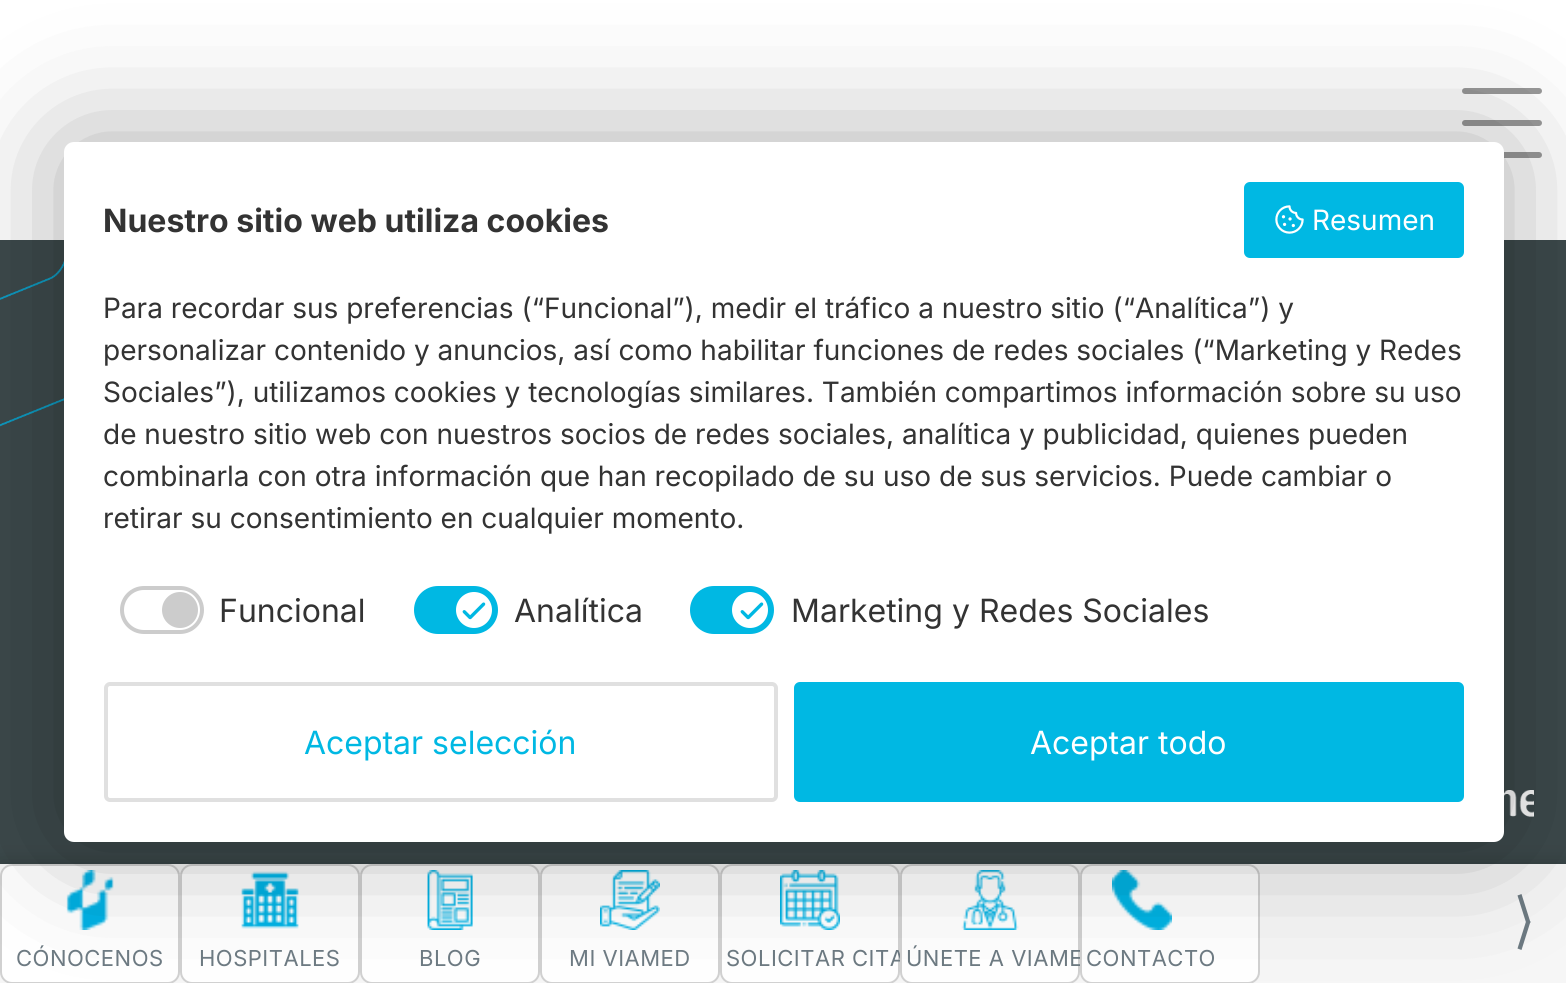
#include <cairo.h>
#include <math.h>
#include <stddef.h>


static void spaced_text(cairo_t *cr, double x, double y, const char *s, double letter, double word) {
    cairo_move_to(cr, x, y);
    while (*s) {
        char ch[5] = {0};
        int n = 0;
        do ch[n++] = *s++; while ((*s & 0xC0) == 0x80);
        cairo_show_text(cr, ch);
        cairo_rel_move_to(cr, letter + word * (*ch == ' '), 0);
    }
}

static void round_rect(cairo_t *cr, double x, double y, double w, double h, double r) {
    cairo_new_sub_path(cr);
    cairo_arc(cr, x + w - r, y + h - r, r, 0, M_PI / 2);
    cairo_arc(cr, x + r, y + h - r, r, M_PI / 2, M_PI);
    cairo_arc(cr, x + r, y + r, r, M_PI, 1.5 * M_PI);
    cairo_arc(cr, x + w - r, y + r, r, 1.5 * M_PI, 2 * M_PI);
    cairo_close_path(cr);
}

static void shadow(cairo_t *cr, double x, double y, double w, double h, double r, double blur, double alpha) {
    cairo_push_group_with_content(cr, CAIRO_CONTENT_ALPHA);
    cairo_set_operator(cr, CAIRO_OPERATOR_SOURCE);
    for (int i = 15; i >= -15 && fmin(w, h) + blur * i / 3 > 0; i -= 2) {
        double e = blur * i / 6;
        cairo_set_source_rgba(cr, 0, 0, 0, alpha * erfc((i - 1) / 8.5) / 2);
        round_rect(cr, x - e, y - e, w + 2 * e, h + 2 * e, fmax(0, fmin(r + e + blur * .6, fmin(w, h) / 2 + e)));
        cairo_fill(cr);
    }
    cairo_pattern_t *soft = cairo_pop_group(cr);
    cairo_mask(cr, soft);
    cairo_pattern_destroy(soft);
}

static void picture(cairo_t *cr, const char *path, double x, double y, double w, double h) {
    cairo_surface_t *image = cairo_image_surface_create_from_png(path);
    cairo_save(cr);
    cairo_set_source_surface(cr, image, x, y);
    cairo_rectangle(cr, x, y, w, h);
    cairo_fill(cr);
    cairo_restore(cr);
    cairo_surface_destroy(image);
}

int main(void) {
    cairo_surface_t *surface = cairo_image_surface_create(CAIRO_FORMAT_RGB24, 1566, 983);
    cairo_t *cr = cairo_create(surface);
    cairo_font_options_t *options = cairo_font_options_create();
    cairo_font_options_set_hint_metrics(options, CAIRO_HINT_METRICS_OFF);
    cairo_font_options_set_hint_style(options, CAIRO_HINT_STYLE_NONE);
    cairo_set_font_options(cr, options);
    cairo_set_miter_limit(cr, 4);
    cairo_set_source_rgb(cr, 0.239, 0.29, 0.298);
    cairo_paint(cr);
    cairo_set_source_rgb(cr, 1, 1, 1);
    cairo_rectangle(cr, 0, 0, 1566, 240);
    cairo_fill(cr);
    cairo_set_source_rgb(cr, 0.6, 0.6, 0.6);
    round_rect(cr, 1462, 152, 80, 6, 3);
    cairo_fill(cr);
    round_rect(cr, 1462, 88, 80, 6, 3);
    cairo_fill(cr);
    round_rect(cr, 1462, 120, 80, 6, 3);
    cairo_fill(cr);
    picture(cr, "img3.png", 0, 261, 64, 166);
    picture(cr, "img4.png", 1504, 790, 30, 27);
    cairo_set_source_rgb(cr, 0, 0, 0);
    shadow(cr, 0, 864, 1566, 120, 0, 10, 0.2);
    cairo_set_source_rgb(cr, 0.961, 0.961, 0.961);
    cairo_rectangle(cr, 0, 864, 1566, 119);
    cairo_fill(cr);
    cairo_set_source_rgb(cr, 0.427, 0.478, 0.51);
    cairo_new_path(cr);
    cairo_move_to(cr, 1517.5, 895.5);
    cairo_line_to(cr, 1521.5, 894);
    cairo_line_to(cr, 1530.5, 922.5);
    cairo_line_to(cr, 1526.5, 924);
    cairo_close_path(cr);
    cairo_fill(cr);
    cairo_new_path(cr);
    cairo_move_to(cr, 1526.5, 920);
    cairo_line_to(cr, 1530.5, 921.5);
    cairo_line_to(cr, 1521.5, 950);
    cairo_line_to(cr, 1517.5, 948.5);
    cairo_close_path(cr);
    cairo_fill(cr);
    cairo_set_source_rgb(cr, 1, 1, 1);
    round_rect(cr, 0, 864, 180, 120, 12);
    cairo_fill(cr);
    round_rect(cr, 1, 865, 178, 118, 11);
    cairo_set_source_rgba(cr, 0, 0, 0, 0.18);
    cairo_stroke(cr);
    picture(cr, "img5.png", 66, 870, 48, 60);
    cairo_set_source_rgb(cr, 1, 1, 1);
    round_rect(cr, 180, 864, 180, 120, 12);
    cairo_fill(cr);
    round_rect(cr, 181, 865, 178, 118, 11);
    cairo_set_source_rgba(cr, 0, 0, 0, 0.18);
    cairo_stroke(cr);
    picture(cr, "img6.png", 241, 871, 58, 58);
    cairo_set_source_rgb(cr, 1, 1, 1);
    round_rect(cr, 360, 864, 180, 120, 12);
    cairo_fill(cr);
    round_rect(cr, 361, 865, 178, 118, 11);
    cairo_set_source_rgba(cr, 0, 0, 0, 0.18);
    cairo_stroke(cr);
    picture(cr, "img7.png", 427, 870, 46, 60);
    cairo_set_source_rgb(cr, 1, 1, 1);
    round_rect(cr, 540, 864, 180, 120, 12);
    cairo_fill(cr);
    round_rect(cr, 541, 865, 178, 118, 11);
    cairo_set_source_rgba(cr, 0, 0, 0, 0.18);
    cairo_stroke(cr);
    picture(cr, "img8.png", 600, 870, 60, 60);
    cairo_set_source_rgb(cr, 1, 1, 1);
    round_rect(cr, 720, 864, 180, 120, 12);
    cairo_fill(cr);
    round_rect(cr, 721, 865, 178, 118, 11);
    cairo_set_source_rgba(cr, 0, 0, 0, 0.18);
    cairo_stroke(cr);
    picture(cr, "img9.png", 780, 870, 60, 60);
    cairo_select_font_face(cr, "Inter", CAIRO_FONT_SLANT_NORMAL, CAIRO_FONT_WEIGHT_NORMAL);
    cairo_set_font_size(cr, 22);
    cairo_set_source_rgb(cr, 0.427, 0.478, 0.51);
    spaced_text(cr, 726, 966, "SOLICITAR CITA", 0.5, 0);
    cairo_set_source_rgb(cr, 1, 1, 1);
    round_rect(cr, 900, 864, 180, 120, 12);
    cairo_fill(cr);
    round_rect(cr, 901, 865, 178, 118, 11);
    cairo_set_source_rgba(cr, 0, 0, 0, 0.18);
    cairo_stroke(cr);
    picture(cr, "img10.png", 961, 870, 58, 60);
    cairo_set_source_rgb(cr, 0.427, 0.478, 0.51);
    spaced_text(cr, 906, 966, "ÚNETE A VIAME", 0.5, 0);
    cairo_set_source_rgb(cr, 1, 1, 1);
    round_rect(cr, 1080, 864, 180, 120, 12);
    cairo_fill(cr);
    round_rect(cr, 1081, 865, 178, 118, 11);
    cairo_set_source_rgba(cr, 0, 0, 0, 0.18);
    cairo_stroke(cr);
    picture(cr, "img11.png", 1112, 870, 60, 60);
    cairo_set_source_rgb(cr, 0, 0, 0);
    shadow(cr, 64, 142, 1440, 700, 10, 64, 0.33);
    cairo_set_source_rgb(cr, 1, 1, 1);
    round_rect(cr, 64, 142, 1440, 700, 10);
    cairo_fill(cr);
    cairo_select_font_face(cr, "Inter", CAIRO_FONT_SLANT_NORMAL, CAIRO_FONT_WEIGHT_BOLD);
    cairo_set_font_size(cr, 32);
    cairo_set_source_rgb(cr, 0.2, 0.2, 0.2);
    cairo_move_to(cr, 103, 232);
    cairo_show_text(cr, "Nuestro sitio web utiliza cookies");
    cairo_set_source_rgb(cr, 0, 0.722, 0.89);
    round_rect(cr, 1244, 182, 220, 76, 6);
    cairo_fill(cr);
    picture(cr, "img1.png", 1275, 205, 29, 29);
    cairo_select_font_face(cr, "Inter", CAIRO_FONT_SLANT_NORMAL, CAIRO_FONT_WEIGHT_NORMAL);
    cairo_set_font_size(cr, 28);
    cairo_set_source_rgb(cr, 1, 1, 1);
    cairo_move_to(cr, 1312, 230);
    cairo_show_text(cr, "Resumen");
    cairo_set_source_rgb(cr, 0.2, 0.2, 0.2);
    cairo_move_to(cr, 103, 318);
    cairo_show_text(cr, "Para recordar sus preferencias (“Funcional”), medir el tráfico a nuestro sitio (“Analítica”) y");
    cairo_move_to(cr, 103, 360);
    cairo_show_text(cr, "personalizar contenido y anuncios, así como habilitar funciones de redes sociales (“Marketing y Redes");
    cairo_move_to(cr, 103, 402);
    cairo_show_text(cr, "Sociales”), utilizamos cookies y tecnologías similares. También compartimos información sobre su uso");
    cairo_move_to(cr, 103, 444);
    cairo_show_text(cr, "de nuestro sitio web con nuestros socios de redes sociales, analítica y publicidad, quienes pueden");
    cairo_move_to(cr, 103, 486);
    cairo_show_text(cr, "combinarla con otra información que han recopilado de su uso de sus servicios. Puede cambiar o");
    cairo_move_to(cr, 103, 528);
    cairo_show_text(cr, "retirar su consentimiento en cualquier momento.");
    round_rect(cr, 122, 588, 80, 44, 22);
    cairo_set_source_rgb(cr, 0.8, 0.8, 0.8);
    cairo_set_line_width(cr, 4);
    cairo_stroke(cr);
    cairo_arc(cr, 180, 610, 18, 0, 2 * M_PI);
    cairo_fill(cr);
    cairo_set_font_size(cr, 32);
    cairo_set_source_rgb(cr, 0.2, 0.2, 0.2);
    cairo_move_to(cr, 219, 622);
    cairo_show_text(cr, "Funcional");
    cairo_set_source_rgb(cr, 0, 0.722, 0.89);
    round_rect(cr, 416, 588, 80, 44, 22);
    cairo_fill_preserve(cr);
    cairo_stroke(cr);
    cairo_set_source_rgb(cr, 1, 1, 1);
    cairo_arc(cr, 474, 610, 18, 0, 2 * M_PI);
    cairo_fill(cr);
    picture(cr, "img2.png", 462, 602, 24, 18);
    cairo_set_source_rgb(cr, 0.2, 0.2, 0.2);
    cairo_move_to(cr, 514, 622);
    cairo_show_text(cr, "Analítica");
    cairo_set_source_rgb(cr, 0, 0.722, 0.89);
    round_rect(cr, 692, 588, 80, 44, 22);
    cairo_fill_preserve(cr);
    cairo_stroke(cr);
    cairo_set_source_rgb(cr, 1, 1, 1);
    cairo_arc(cr, 750, 610, 18, 0, 2 * M_PI);
    cairo_fill(cr);
    picture(cr, "img2.png", 740, 602, 24, 18);
    cairo_set_source_rgb(cr, 0.2, 0.2, 0.2);
    cairo_move_to(cr, 791, 622);
    cairo_show_text(cr, "Marketing y Redes Sociales");
    round_rect(cr, 106, 684, 670, 116, 4);
    cairo_set_source_rgb(cr, 0.878, 0.878, 0.878);
    cairo_stroke(cr);
    cairo_set_source_rgb(cr, 0, 0.722, 0.89);
    cairo_move_to(cr, 304, 754);
    cairo_show_text(cr, "Aceptar selección");
    round_rect(cr, 794, 682, 670, 120, 6);
    cairo_fill(cr);
    cairo_set_source_rgb(cr, 1, 1, 1);
    cairo_move_to(cr, 1030, 754);
    cairo_show_text(cr, "Aceptar todo");
    cairo_set_font_size(cr, 22);
    cairo_set_source_rgb(cr, 0.427, 0.478, 0.51);
    spaced_text(cr, 16, 966, "CÓNOCENOS", 0.5, 0);
    spaced_text(cr, 199, 966, "HOSPITALES", 0.5, 0);
    spaced_text(cr, 419, 966, "BLOG", 0.5, 0);
    spaced_text(cr, 569, 966, "MI VIAMED", 0.5, 0);
    spaced_text(cr, 1086, 966, "CONTACTO", 0.5, 0);
    cairo_surface_write_to_png(surface, "page.png");
    cairo_font_options_destroy(options);
    cairo_destroy(cr);
    cairo_surface_destroy(surface);
    return 0;
}
